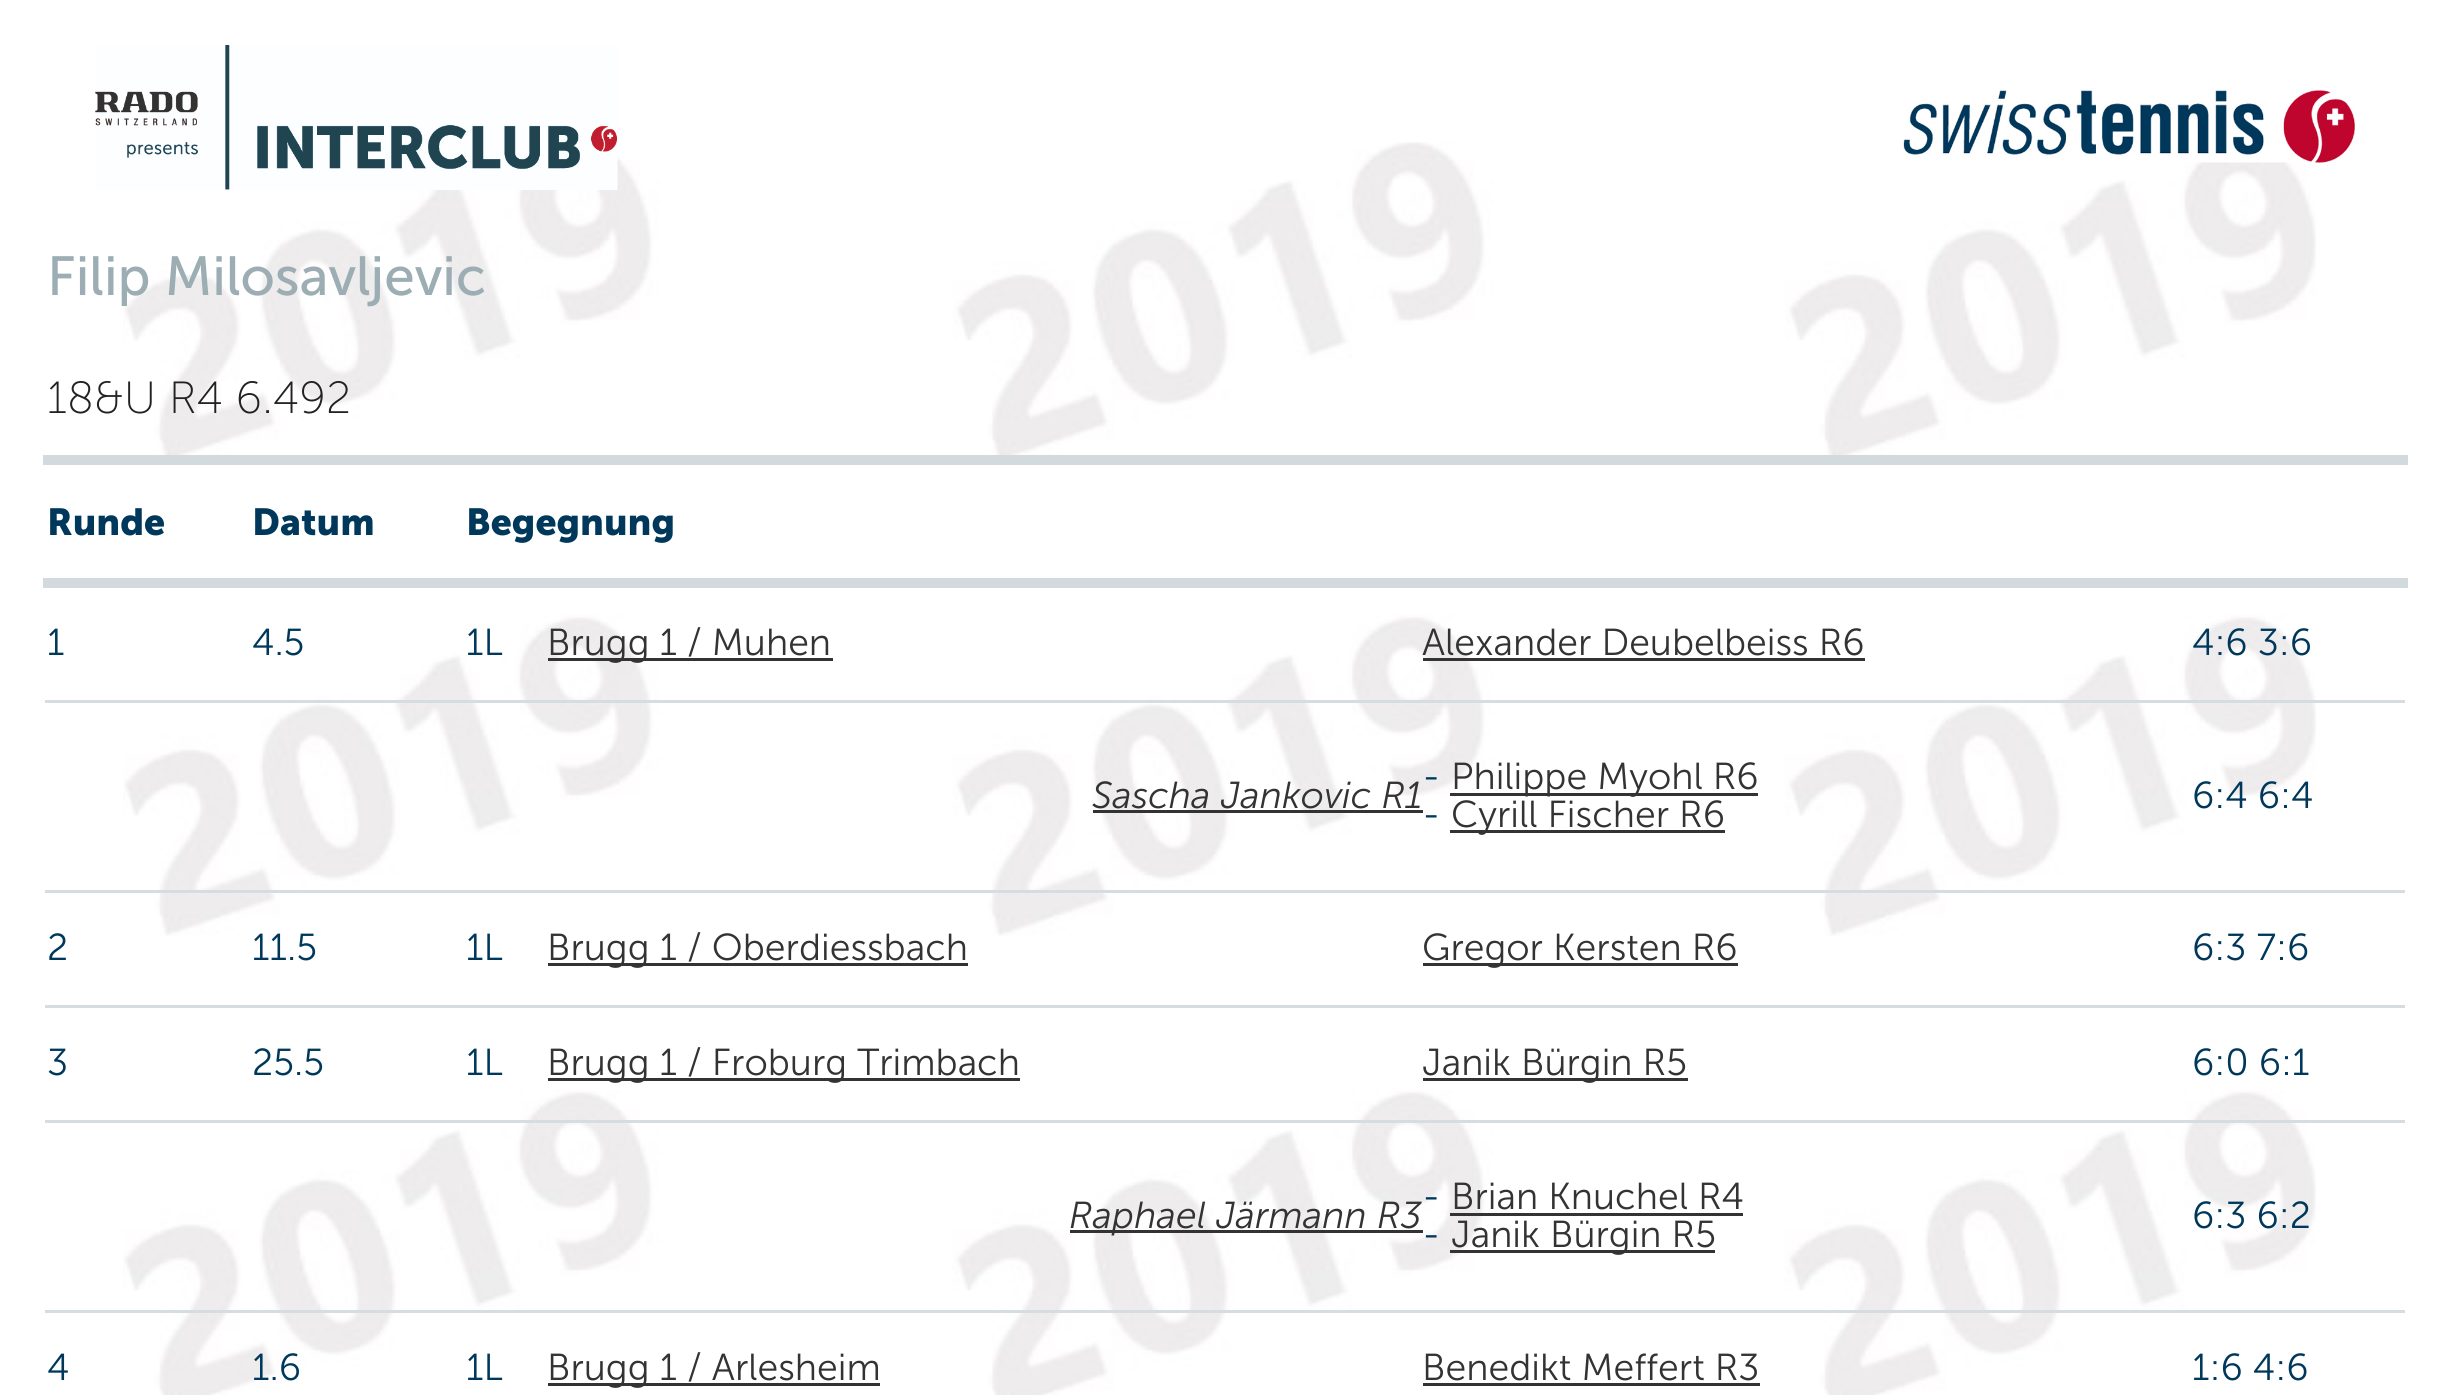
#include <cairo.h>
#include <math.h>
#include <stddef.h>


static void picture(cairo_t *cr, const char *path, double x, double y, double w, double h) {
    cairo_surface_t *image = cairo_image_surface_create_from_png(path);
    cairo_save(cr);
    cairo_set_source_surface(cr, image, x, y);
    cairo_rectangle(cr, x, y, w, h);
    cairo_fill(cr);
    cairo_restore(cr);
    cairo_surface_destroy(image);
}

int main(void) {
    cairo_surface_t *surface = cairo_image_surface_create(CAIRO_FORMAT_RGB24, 2448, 1395);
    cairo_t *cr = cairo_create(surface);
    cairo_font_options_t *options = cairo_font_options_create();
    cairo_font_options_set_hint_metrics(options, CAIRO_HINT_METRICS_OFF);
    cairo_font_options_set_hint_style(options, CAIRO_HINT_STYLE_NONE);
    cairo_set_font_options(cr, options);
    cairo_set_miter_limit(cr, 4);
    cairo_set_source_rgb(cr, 1, 1, 1);
    cairo_paint(cr);
    picture(cr, "img1.png", 123, 142, 2193, 1253);
    picture(cr, "img2.png", 95, 45, 523, 145);
    picture(cr, "img3.png", 1903, 90, 452, 73);
    cairo_select_font_face(cr, "Museo Sans", CAIRO_FONT_SLANT_NORMAL, CAIRO_FONT_WEIGHT_NORMAL);
    cairo_set_font_size(cr, 55);
    cairo_set_source_rgb(cr, 0.612, 0.678, 0.702);
    cairo_move_to(cr, 47, 295);
    cairo_show_text(cr, "Filip Milosavljevic");
    cairo_select_font_face(cr, "Museo Sans ExtraLight", CAIRO_FONT_SLANT_NORMAL, CAIRO_FONT_WEIGHT_NORMAL);
    cairo_set_font_size(cr, 45);
    cairo_set_source_rgb(cr, 0.133, 0.133, 0.133);
    cairo_move_to(cr, 47, 413);
    cairo_show_text(cr, "18&U R4 6.492");
    cairo_set_source_rgb(cr, 0.824, 0.855, 0.867);
    cairo_rectangle(cr, 43, 455, 2365, 10);
    cairo_fill(cr);
    cairo_rectangle(cr, 43, 578, 2365, 10);
    cairo_fill(cr);
    cairo_select_font_face(cr, "Museo Sans", CAIRO_FONT_SLANT_NORMAL, CAIRO_FONT_WEIGHT_BOLD);
    cairo_set_font_size(cr, 37.5);
    cairo_set_source_rgb(cr, 0, 0.22, 0.357);
    cairo_move_to(cr, 47, 535);
    cairo_show_text(cr, "Runde");
    cairo_move_to(cr, 252, 535);
    cairo_show_text(cr, "Datum");
    cairo_move_to(cr, 466, 535);
    cairo_show_text(cr, "Begegnung");
    cairo_select_font_face(cr, "Museo Sans Light", CAIRO_FONT_SLANT_NORMAL, CAIRO_FONT_WEIGHT_NORMAL);
    cairo_move_to(cr, 47, 655);
    cairo_show_text(cr, "1");
    cairo_move_to(cr, 252, 655);
    cairo_show_text(cr, "4.5");
    cairo_move_to(cr, 466, 655);
    cairo_show_text(cr, "1L");
    cairo_set_source_rgb(cr, 0.2, 0.2, 0.2);
    cairo_rectangle(cr, 548, 658, 285, 3);
    cairo_fill(cr);
    cairo_move_to(cr, 547, 655);
    cairo_show_text(cr, "Brugg 1 / Muhen");
    cairo_move_to(cr, 1422, 655);
    cairo_show_text(cr, "Alexander Deubelbeiss R6");
    cairo_rectangle(cr, 1423, 658, 442, 3);
    cairo_fill(cr);
    cairo_set_source_rgb(cr, 0.835, 0.867, 0.878);
    cairo_rectangle(cr, 45, 700, 2360, 3);
    cairo_fill(cr);
    cairo_set_source_rgb(cr, 0, 0.22, 0.357);
    cairo_move_to(cr, 2192, 655);
    cairo_show_text(cr, "4:6 3:6");
    cairo_select_font_face(cr, "Museo Sans Light", CAIRO_FONT_SLANT_ITALIC, CAIRO_FONT_WEIGHT_NORMAL);
    cairo_set_source_rgb(cr, 0.2, 0.2, 0.2);
    cairo_move_to(cr, 1092, 808);
    cairo_show_text(cr, "Sascha Jankovic R1");
    cairo_rectangle(cr, 1093, 810, 330, 3);
    cairo_fill(cr);
    cairo_select_font_face(cr, "Museo Sans Light", CAIRO_FONT_SLANT_NORMAL, CAIRO_FONT_WEIGHT_NORMAL);
    cairo_set_source_rgb(cr, 0, 0.22, 0.357);
    cairo_move_to(cr, 1422, 789);
    cairo_show_text(cr, "-");
    cairo_set_source_rgb(cr, 0.2, 0.2, 0.2);
    cairo_rectangle(cr, 1450, 793, 308, 3);
    cairo_fill(cr);
    cairo_move_to(cr, 1451, 789);
    cairo_show_text(cr, "Philippe Myohl R6");
    cairo_set_source_rgb(cr, 0, 0.22, 0.357);
    cairo_move_to(cr, 1422, 827);
    cairo_show_text(cr, "-");
    cairo_set_source_rgb(cr, 0.2, 0.2, 0.2);
    cairo_rectangle(cr, 1450, 830, 275, 3);
    cairo_fill(cr);
    cairo_move_to(cr, 1451, 827);
    cairo_show_text(cr, "Cyrill Fischer R6");
    cairo_set_source_rgb(cr, 0.835, 0.867, 0.878);
    cairo_rectangle(cr, 45, 890, 2360, 3);
    cairo_fill(cr);
    cairo_set_source_rgb(cr, 0, 0.22, 0.357);
    cairo_move_to(cr, 2192, 808);
    cairo_show_text(cr, "6:4 6:4");
    cairo_move_to(cr, 47, 960);
    cairo_show_text(cr, "2");
    cairo_move_to(cr, 252, 960);
    cairo_show_text(cr, "11.5");
    cairo_move_to(cr, 466, 960);
    cairo_show_text(cr, "1L");
    cairo_set_source_rgb(cr, 0.2, 0.2, 0.2);
    cairo_rectangle(cr, 548, 963, 420, 3);
    cairo_fill(cr);
    cairo_move_to(cr, 547, 960);
    cairo_show_text(cr, "Brugg 1 / Oberdiessbach");
    cairo_rectangle(cr, 1423, 963, 315, 3);
    cairo_fill(cr);
    cairo_move_to(cr, 1422, 960);
    cairo_show_text(cr, "Gregor Kersten R6");
    cairo_set_source_rgb(cr, 0.835, 0.867, 0.878);
    cairo_rectangle(cr, 45, 1005, 2360, 3);
    cairo_fill(cr);
    cairo_set_source_rgb(cr, 0, 0.22, 0.357);
    cairo_move_to(cr, 2192, 960);
    cairo_show_text(cr, "6:3 7:6");
    cairo_move_to(cr, 47, 1075);
    cairo_show_text(cr, "3");
    cairo_move_to(cr, 252, 1075);
    cairo_show_text(cr, "25.5");
    cairo_move_to(cr, 466, 1075);
    cairo_show_text(cr, "1L");
    cairo_set_source_rgb(cr, 0.2, 0.2, 0.2);
    cairo_rectangle(cr, 548, 1078, 472, 3);
    cairo_fill(cr);
    cairo_move_to(cr, 547, 1075);
    cairo_show_text(cr, "Brugg 1 / Froburg Trimbach");
    cairo_rectangle(cr, 1423, 1078, 265, 3);
    cairo_fill(cr);
    cairo_move_to(cr, 1422, 1075);
    cairo_show_text(cr, "Janik Bürgin R5");
    cairo_set_source_rgb(cr, 0.835, 0.867, 0.878);
    cairo_rectangle(cr, 45, 1120, 2360, 3);
    cairo_fill(cr);
    cairo_set_source_rgb(cr, 0, 0.22, 0.357);
    cairo_move_to(cr, 2192, 1075);
    cairo_show_text(cr, "6:0 6:1");
    cairo_set_source_rgb(cr, 0.2, 0.2, 0.2);
    cairo_rectangle(cr, 1070, 1230, 353, 3);
    cairo_fill(cr);
    cairo_select_font_face(cr, "Museo Sans Light", CAIRO_FONT_SLANT_ITALIC, CAIRO_FONT_WEIGHT_NORMAL);
    cairo_move_to(cr, 1069, 1228);
    cairo_show_text(cr, "Raphael Järmann R3");
    cairo_select_font_face(cr, "Museo Sans Light", CAIRO_FONT_SLANT_NORMAL, CAIRO_FONT_WEIGHT_NORMAL);
    cairo_set_source_rgb(cr, 0, 0.22, 0.357);
    cairo_move_to(cr, 1422, 1209);
    cairo_show_text(cr, "-");
    cairo_set_source_rgb(cr, 0.2, 0.2, 0.2);
    cairo_move_to(cr, 1451, 1209);
    cairo_show_text(cr, "Brian Knuchel R4");
    cairo_rectangle(cr, 1450, 1213, 293, 3);
    cairo_fill(cr);
    cairo_set_source_rgb(cr, 0, 0.22, 0.357);
    cairo_move_to(cr, 1422, 1247);
    cairo_show_text(cr, "-");
    cairo_set_source_rgb(cr, 0.2, 0.2, 0.2);
    cairo_rectangle(cr, 1450, 1250, 265, 3);
    cairo_fill(cr);
    cairo_move_to(cr, 1451, 1247);
    cairo_show_text(cr, "Janik Bürgin R5");
    cairo_set_source_rgb(cr, 0.835, 0.867, 0.878);
    cairo_rectangle(cr, 45, 1310, 2360, 3);
    cairo_fill(cr);
    cairo_set_source_rgb(cr, 0, 0.22, 0.357);
    cairo_move_to(cr, 2192, 1228);
    cairo_show_text(cr, "6:3 6:2");
    cairo_move_to(cr, 47, 1380);
    cairo_show_text(cr, "4");
    cairo_move_to(cr, 252, 1380);
    cairo_show_text(cr, "1.6");
    cairo_move_to(cr, 466, 1380);
    cairo_show_text(cr, "1L");
    cairo_set_source_rgb(cr, 0.2, 0.2, 0.2);
    cairo_rectangle(cr, 548, 1383, 332, 3);
    cairo_fill(cr);
    cairo_move_to(cr, 547, 1380);
    cairo_show_text(cr, "Brugg 1 / Arlesheim");
    cairo_move_to(cr, 1422, 1380);
    cairo_show_text(cr, "Benedikt Meffert R3");
    cairo_rectangle(cr, 1423, 1383, 337, 3);
    cairo_fill(cr);
    cairo_set_source_rgb(cr, 0, 0.22, 0.357);
    cairo_move_to(cr, 2192, 1380);
    cairo_show_text(cr, "1:6 4:6");
    cairo_surface_write_to_png(surface, "page.png");
    cairo_font_options_destroy(options);
    cairo_destroy(cr);
    cairo_surface_destroy(surface);
    return 0;
}
